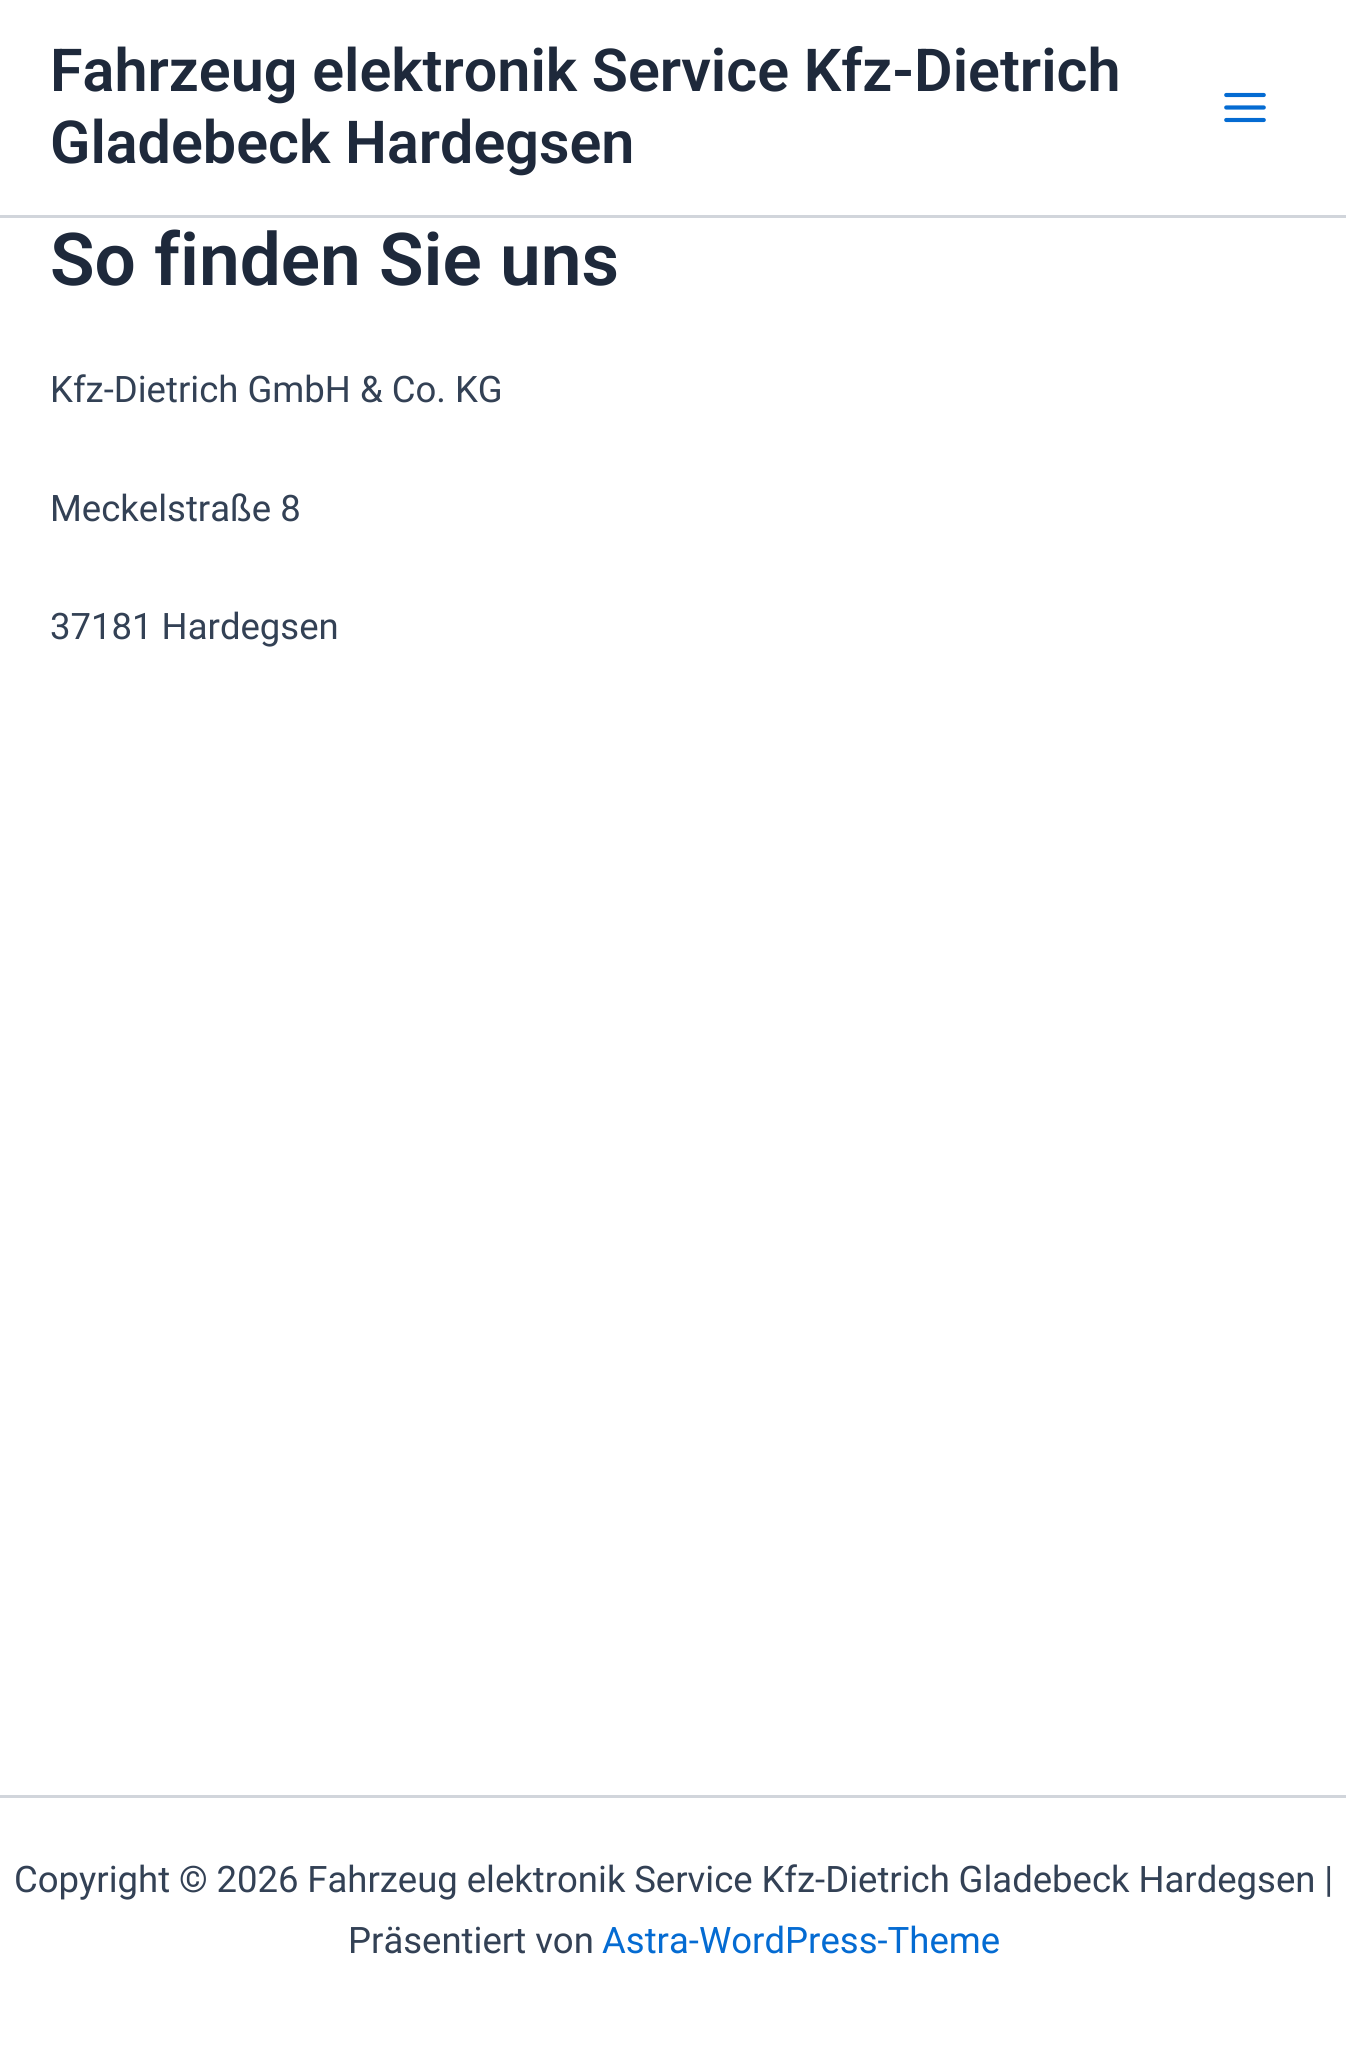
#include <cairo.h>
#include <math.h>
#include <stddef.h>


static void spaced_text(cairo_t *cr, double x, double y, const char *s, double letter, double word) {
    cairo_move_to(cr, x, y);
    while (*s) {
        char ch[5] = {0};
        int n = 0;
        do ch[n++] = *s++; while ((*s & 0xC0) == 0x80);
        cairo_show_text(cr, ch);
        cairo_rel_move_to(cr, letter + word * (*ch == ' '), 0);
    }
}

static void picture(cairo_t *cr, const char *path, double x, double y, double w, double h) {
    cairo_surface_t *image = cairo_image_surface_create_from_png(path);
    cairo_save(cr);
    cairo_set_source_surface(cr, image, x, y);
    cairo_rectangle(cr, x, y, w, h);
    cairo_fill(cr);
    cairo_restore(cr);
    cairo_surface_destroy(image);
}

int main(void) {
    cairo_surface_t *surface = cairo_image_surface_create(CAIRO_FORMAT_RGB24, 1346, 2046);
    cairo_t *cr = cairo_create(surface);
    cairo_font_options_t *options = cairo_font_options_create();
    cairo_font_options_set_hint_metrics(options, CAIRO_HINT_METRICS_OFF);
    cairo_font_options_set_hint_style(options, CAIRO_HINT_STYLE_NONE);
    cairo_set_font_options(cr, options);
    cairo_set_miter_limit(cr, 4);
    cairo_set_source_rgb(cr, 1, 1, 1);
    cairo_paint(cr);
    cairo_set_source_rgb(cr, 0.82, 0.835, 0.859);
    cairo_rectangle(cr, 0, 215, 1346, 3);
    cairo_fill(cr);
    cairo_select_font_face(cr, "Roboto SemiBold", CAIRO_FONT_SLANT_NORMAL, CAIRO_FONT_WEIGHT_NORMAL);
    cairo_set_font_size(cr, 59.25);
    cairo_set_source_rgb(cr, 0.118, 0.161, 0.231);
    cairo_move_to(cr, 50, 91);
    cairo_show_text(cr, "Fahrzeug elektronik Service Kfz-Dietrich");
    cairo_move_to(cr, 50, 163);
    cairo_show_text(cr, "Gladebeck Hardegsen");
    picture(cr, "img1.png", 1224, 92, 42, 31);
    cairo_set_font_size(cr, 73);
    cairo_move_to(cr, 50, 285);
    cairo_show_text(cr, "So finden Sie uns");
    cairo_select_font_face(cr, "Roboto", CAIRO_FONT_SLANT_NORMAL, CAIRO_FONT_WEIGHT_NORMAL);
    cairo_set_font_size(cr, 36.5);
    cairo_set_source_rgb(cr, 0.2, 0.255, 0.333);
    cairo_move_to(cr, 50, 402);
    cairo_show_text(cr, "Kfz-Dietrich GmbH & Co. KG");
    cairo_move_to(cr, 50, 521);
    cairo_show_text(cr, "Meckelstraße 8");
    cairo_move_to(cr, 50, 639);
    cairo_show_text(cr, "37181 Hardegsen");
    cairo_set_source_rgb(cr, 0.82, 0.835, 0.859);
    cairo_rectangle(cr, 0, 1795, 1346, 3);
    cairo_fill(cr);
    cairo_set_source_rgb(cr, 0.2, 0.255, 0.333);
    spaced_text(cr, 14, 1892, "Copyright © 2026 Fahrzeug elektronik Service Kfz-Dietrich Gladebeck Hardegsen |", 0, -0.25);
    cairo_move_to(cr, 348, 1953);
    cairo_show_text(cr, "Präsentiert von");
    cairo_set_source_rgb(cr, 0.016, 0.42, 0.824);
    cairo_move_to(cr, 602, 1953);
    cairo_show_text(cr, "Astra-WordPress-Theme");
    cairo_surface_write_to_png(surface, "page.png");
    cairo_font_options_destroy(options);
    cairo_destroy(cr);
    cairo_surface_destroy(surface);
    return 0;
}
